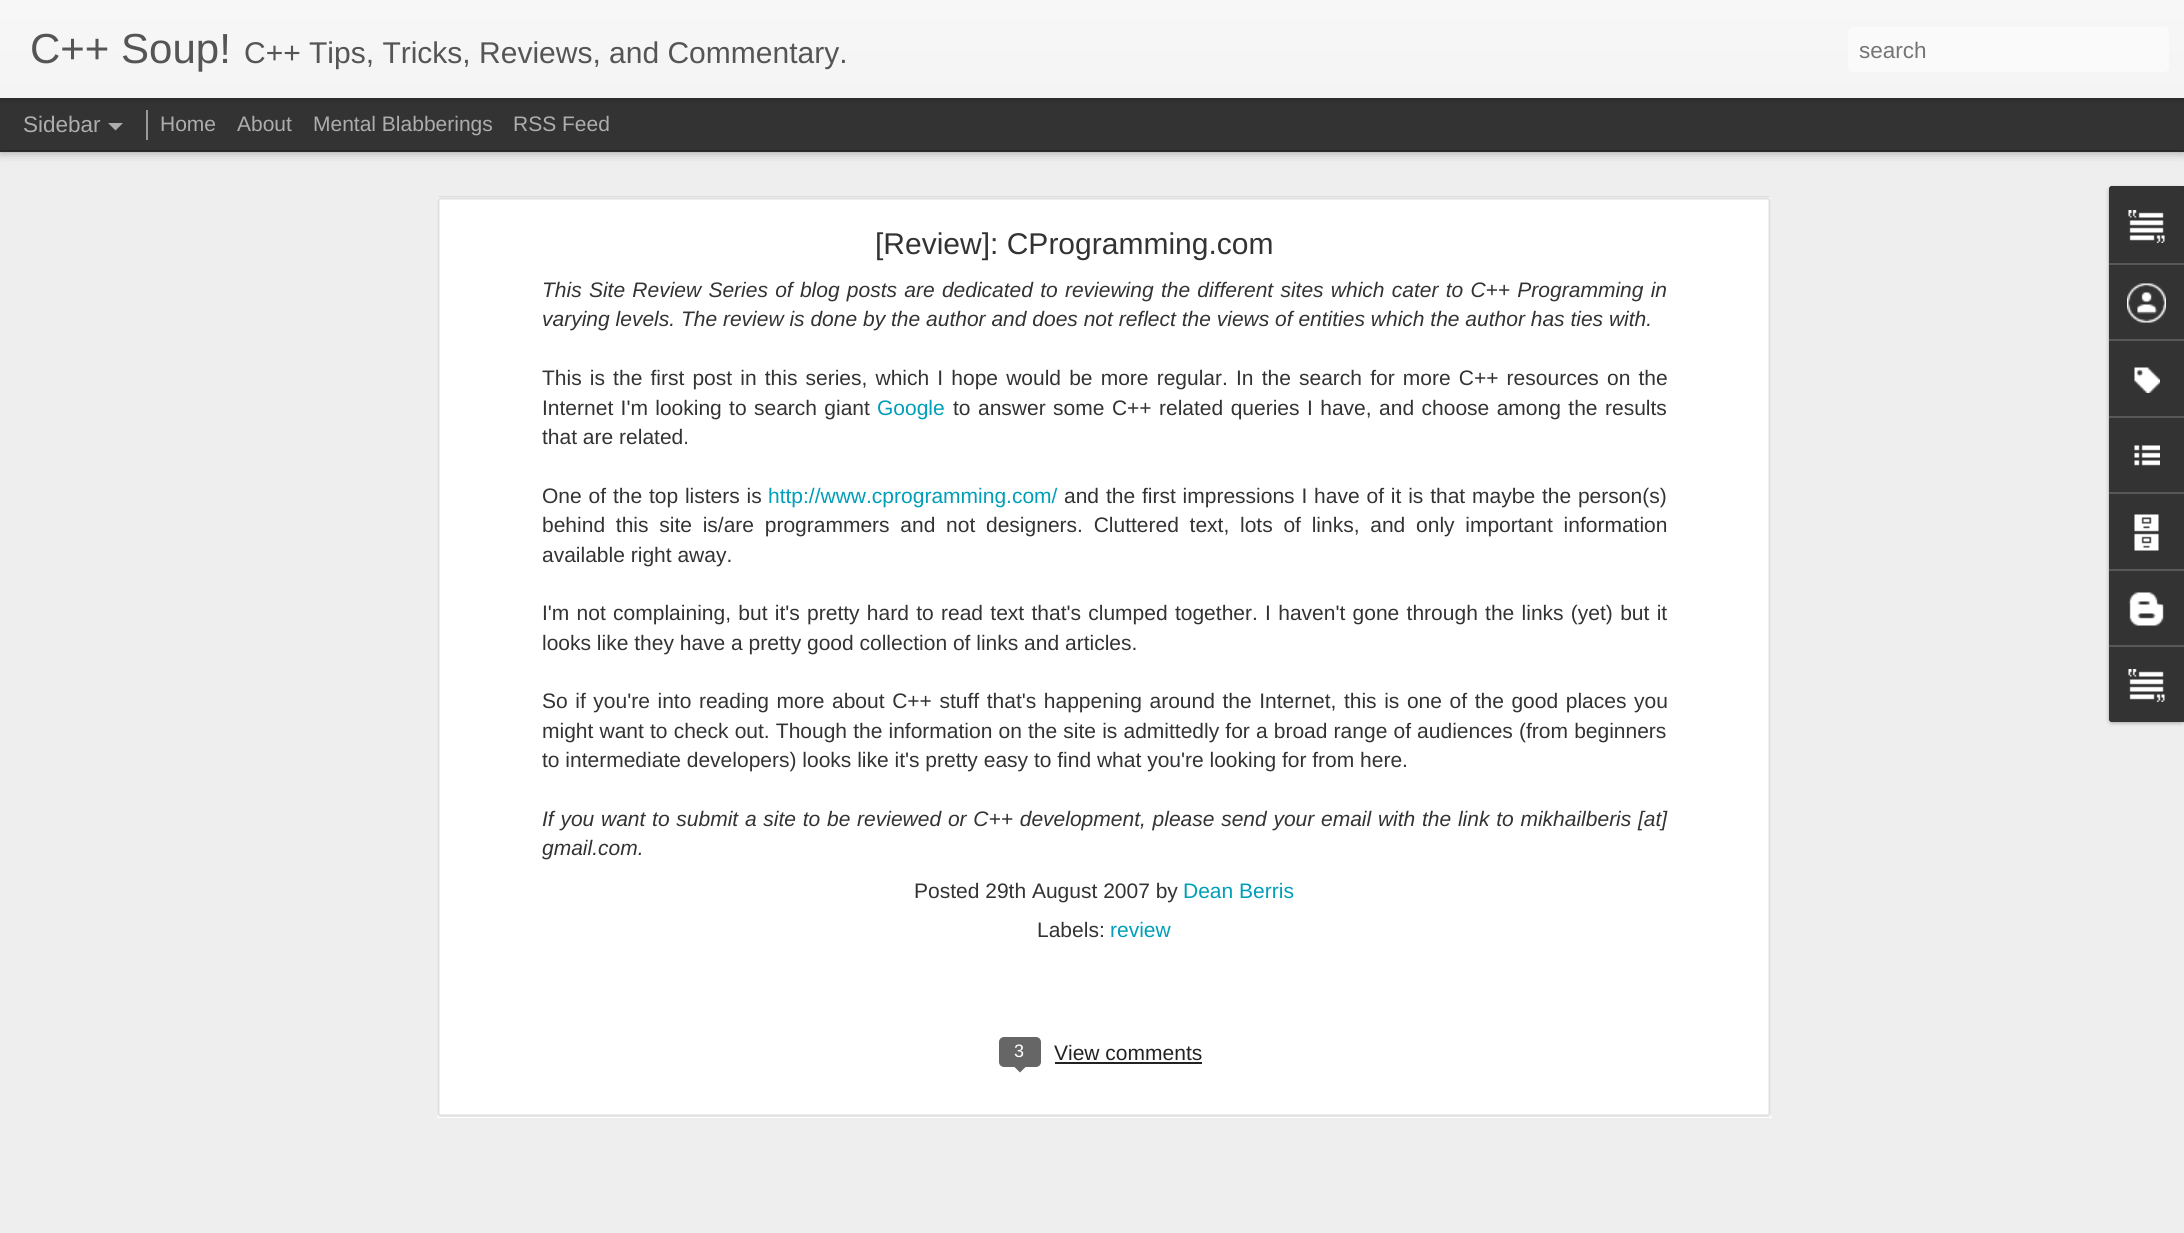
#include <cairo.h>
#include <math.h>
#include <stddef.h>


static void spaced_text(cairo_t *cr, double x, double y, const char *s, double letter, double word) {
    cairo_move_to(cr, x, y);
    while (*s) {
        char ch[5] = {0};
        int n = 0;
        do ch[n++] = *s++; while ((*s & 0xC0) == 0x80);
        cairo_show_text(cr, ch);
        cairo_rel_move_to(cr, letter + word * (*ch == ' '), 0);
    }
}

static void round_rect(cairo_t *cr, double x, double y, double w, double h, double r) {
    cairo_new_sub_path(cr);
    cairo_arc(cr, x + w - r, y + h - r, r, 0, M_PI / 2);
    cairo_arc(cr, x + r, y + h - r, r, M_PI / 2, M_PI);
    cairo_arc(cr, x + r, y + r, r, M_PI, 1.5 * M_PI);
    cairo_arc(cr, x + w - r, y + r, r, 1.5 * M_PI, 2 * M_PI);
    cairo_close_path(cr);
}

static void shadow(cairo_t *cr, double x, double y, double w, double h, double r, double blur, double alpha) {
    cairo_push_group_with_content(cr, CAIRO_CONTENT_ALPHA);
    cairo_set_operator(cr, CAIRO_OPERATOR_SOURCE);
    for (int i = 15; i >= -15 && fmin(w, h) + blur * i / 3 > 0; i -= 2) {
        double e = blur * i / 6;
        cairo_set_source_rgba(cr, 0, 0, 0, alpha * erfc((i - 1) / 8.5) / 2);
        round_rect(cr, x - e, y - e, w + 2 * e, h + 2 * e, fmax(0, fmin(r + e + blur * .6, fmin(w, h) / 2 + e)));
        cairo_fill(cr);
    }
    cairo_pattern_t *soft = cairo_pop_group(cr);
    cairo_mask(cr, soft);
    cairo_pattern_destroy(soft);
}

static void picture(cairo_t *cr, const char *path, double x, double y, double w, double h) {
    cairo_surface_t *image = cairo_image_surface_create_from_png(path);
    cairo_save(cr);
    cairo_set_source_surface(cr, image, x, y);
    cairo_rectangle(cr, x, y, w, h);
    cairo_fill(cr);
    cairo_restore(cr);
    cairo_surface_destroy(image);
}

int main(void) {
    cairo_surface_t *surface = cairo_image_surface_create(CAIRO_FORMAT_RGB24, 2184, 1233);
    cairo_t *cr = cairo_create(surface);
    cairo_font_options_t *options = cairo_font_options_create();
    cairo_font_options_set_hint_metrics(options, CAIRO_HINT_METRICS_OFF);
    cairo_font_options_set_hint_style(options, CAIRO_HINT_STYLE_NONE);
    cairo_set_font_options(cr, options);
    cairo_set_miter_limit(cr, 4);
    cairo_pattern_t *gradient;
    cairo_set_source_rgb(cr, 0.2, 0.2, 0.2);
    cairo_paint(cr);
    cairo_set_source_rgb(cr, 0.933, 0.933, 0.933);
    cairo_rectangle(cr, 0, 152, 2184, 1081);
    cairo_fill(cr);
    cairo_set_source_rgb(cr, 0, 0, 0);
    shadow(cr, 0, 98, 2184, 52, 0, 6, 0.5);
    cairo_set_source_rgb(cr, 0.2, 0.2, 0.2);
    cairo_rectangle(cr, 0, 98, 2184, 52);
    cairo_fill(cr);
    cairo_set_source_rgb(cr, 0.6, 0.6, 0.6);
    cairo_rectangle(cr, 146, 110, 2, 30);
    cairo_fill(cr);
    cairo_set_source_rgb(cr, 0, 0, 0);
    shadow(cr, 0, 0, 2184, 98, 0, 4, 0.3);
    gradient = cairo_pattern_create_linear(0, 0, 0, 98);
    cairo_pattern_add_color_stop_rgba(gradient, 0, 0.969, 0.969, 0.969, 1);
    cairo_pattern_add_color_stop_rgba(gradient, 1, 0.957, 0.957, 0.957, 1);
    cairo_set_source(cr, gradient);
    cairo_pattern_destroy(gradient);
    cairo_rectangle(cr, 0, 0, 2184, 98);
    cairo_fill(cr);
    cairo_select_font_face(cr, "Liberation Sans", CAIRO_FONT_SLANT_NORMAL, CAIRO_FONT_WEIGHT_NORMAL);
    cairo_set_font_size(cr, 42);
    cairo_set_source_rgb(cr, 0.333, 0.333, 0.333);
    cairo_move_to(cr, 30, 63);
    cairo_show_text(cr, "C++ Soup!");
    cairo_set_font_size(cr, 30);
    cairo_move_to(cr, 244, 63);
    cairo_show_text(cr, "C++ Tips, Tricks, Reviews, and Commentary.");
    cairo_set_source_rgb(cr, 0.98, 0.98, 0.98);
    round_rect(cr, 1848, 27, 321, 45, 5);
    cairo_fill(cr);
    cairo_set_font_size(cr, 22.5);
    cairo_set_source_rgb(cr, 0.459, 0.459, 0.459);
    cairo_move_to(cr, 1859, 58);
    cairo_show_text(cr, "search");
    cairo_set_source_rgb(cr, 0.678, 0.678, 0.678);
    cairo_move_to(cr, 23, 132);
    cairo_show_text(cr, "Sidebar");
    cairo_new_path(cr);
    cairo_move_to(cr, 108, 123);
    cairo_line_to(cr, 123, 123);
    cairo_line_to(cr, 115.5, 130.5);
    cairo_close_path(cr);
    cairo_fill(cr);
    cairo_set_font_size(cr, 21);
    cairo_move_to(cr, 160, 131);
    cairo_show_text(cr, "Home");
    cairo_move_to(cr, 237, 131);
    cairo_show_text(cr, "About");
    cairo_move_to(cr, 313, 131);
    cairo_show_text(cr, "Mental Blabberings");
    cairo_move_to(cr, 513, 131);
    cairo_show_text(cr, "RSS Feed");
    cairo_set_source_rgb(cr, 1, 1, 1);
    cairo_rectangle(cr, 437, 197, 1335, 921);
    cairo_fill(cr);
    picture(cr, "img1.png", 437, 196, 1335, 921);
    cairo_set_font_size(cr, 30);
    cairo_set_source_rgb(cr, 0.2, 0.2, 0.2);
    cairo_move_to(cr, 875, 254);
    cairo_show_text(cr, "[Review]: CProgramming.com");
    cairo_select_font_face(cr, "Liberation Sans", CAIRO_FONT_SLANT_ITALIC, CAIRO_FONT_WEIGHT_NORMAL);
    cairo_set_font_size(cr, 21);
    spaced_text(cr, 542, 297, "This Site Review Series of blog posts are dedicated to reviewing the different sites which cater to C++ Programming in", 0, 1.4);
    cairo_move_to(cr, 542, 326);
    cairo_show_text(cr, "varying levels. The review is done by the author and does not reflect the views of entities which the author has ties with.");
    cairo_select_font_face(cr, "Liberation Sans", CAIRO_FONT_SLANT_NORMAL, CAIRO_FONT_WEIGHT_NORMAL);
    spaced_text(cr, 542, 385, "This is the first post in this series, which I hope would be more regular. In the search for more C++ resources on the", 0, 2.3);
    spaced_text(cr, 542, 415, "Internet I'm looking to search giant", 0, 1.5);
    cairo_set_source_rgb(cr, 0, 0.62, 0.722);
    cairo_move_to(cr, 877, 415);
    cairo_show_text(cr, "Google");
    cairo_set_source_rgb(cr, 0.2, 0.2, 0.2);
    spaced_text(cr, 953, 415, "to answer some C++ related queries I have, and choose among the results", 0, 1.6);
    cairo_move_to(cr, 542, 444);
    cairo_show_text(cr, "that are related.");
    spaced_text(cr, 542, 503, "One of the top listers is", 0, 1);
    cairo_set_source_rgb(cr, 0, 0.62, 0.722);
    cairo_move_to(cr, 768, 503);
    cairo_show_text(cr, "http://www.cprogramming.com/");
    cairo_set_source_rgb(cr, 0.2, 0.2, 0.2);
    spaced_text(cr, 1064, 503, "and the first impressions I have of it is that maybe the person(s)", 0, 1);
    spaced_text(cr, 542, 532, "behind this site is/are programmers and not designers. Cluttered text, lots of links, and only important information", 0, 4.9);
    cairo_move_to(cr, 542, 562);
    cairo_show_text(cr, "available right away.");
    spaced_text(cr, 542, 620, "I'm not complaining, but it's pretty hard to read text that's clumped together. I haven't gone through the links (yet) but it", 0, 1.45);
    cairo_move_to(cr, 542, 650);
    cairo_show_text(cr, "looks like they have a pretty good collection of links and articles.");
    spaced_text(cr, 542, 708, "So if you're into reading more about C++ stuff that's happening around the Internet, this is one of the good places you", 0, 1.75);
    spaced_text(cr, 542, 738, "might want to check out. Though the information on the site is admittedly for a broad range of audiences (from beginners", 0, 0.3);
    cairo_move_to(cr, 542, 767);
    cairo_show_text(cr, "to intermediate developers) looks like it's pretty easy to find what you're looking for from here.");
    cairo_select_font_face(cr, "Liberation Sans", CAIRO_FONT_SLANT_ITALIC, CAIRO_FONT_WEIGHT_NORMAL);
    spaced_text(cr, 542, 826, "If you want to submit a site to be reviewed or C++ development, please send your email with the link to mikhailberis [at]", 0, 0.9);
    cairo_move_to(cr, 542, 855);
    cairo_show_text(cr, "gmail.com.");
    cairo_select_font_face(cr, "Liberation Sans", CAIRO_FONT_SLANT_NORMAL, CAIRO_FONT_WEIGHT_NORMAL);
    cairo_move_to(cr, 914, 898);
    cairo_show_text(cr, "Posted 29th August 2007 by");
    cairo_set_source_rgb(cr, 0, 0.62, 0.722);
    cairo_move_to(cr, 1183, 898);
    cairo_show_text(cr, "Dean Berris");
    cairo_set_source_rgb(cr, 0.2, 0.2, 0.2);
    cairo_move_to(cr, 1037, 937);
    cairo_show_text(cr, "Labels:");
    cairo_set_source_rgb(cr, 0, 0.62, 0.722);
    cairo_move_to(cr, 1110, 937);
    cairo_show_text(cr, "review");
    cairo_set_source_rgb(cr, 0.4, 0.4, 0.4);
    round_rect(cr, 1000, 1038, 40, 28, 4);
    cairo_fill_preserve(cr);
    cairo_stroke(cr);
    cairo_set_font_size(cr, 18);
    cairo_set_source_rgb(cr, 1, 1, 1);
    cairo_move_to(cr, 1014, 1057);
    cairo_show_text(cr, "3");
    cairo_set_source_rgb(cr, 0.4, 0.4, 0.4);
    cairo_new_path(cr);
    cairo_move_to(cr, 1012.5, 1065);
    cairo_line_to(cr, 1027.5, 1065);
    cairo_line_to(cr, 1020, 1072.5);
    cairo_close_path(cr);
    cairo_fill(cr);
    cairo_set_font_size(cr, 21);
    cairo_set_source_rgb(cr, 0.133, 0.133, 0.133);
    cairo_move_to(cr, 1054, 1060);
    cairo_show_text(cr, "View comments");
    cairo_rectangle(cr, 1055, 1062, 147, 2);
    cairo_fill(cr);
    cairo_set_source_rgb(cr, 0, 0, 0);
    shadow(cr, 2109, 188, 75, 535, 3, 2, 0.3);
    cairo_set_source_rgb(cr, 0.2, 0.2, 0.2);
    cairo_new_path(cr);
    cairo_move_to(cr, 2112, 186);
    cairo_line_to(cr, 2184, 186);
    cairo_line_to(cr, 2184, 722);
    cairo_line_to(cr, 2112, 722);
    cairo_curve_to(cr, 2110.5, 722, 2109, 720.5, 2109, 719);
    cairo_line_to(cr, 2109, 189);
    cairo_curve_to(cr, 2109, 187.5, 2110.5, 186, 2112, 186);
    cairo_close_path(cr);
    cairo_fill(cr);
    cairo_new_path(cr);
    cairo_move_to(cr, 2112, 186);
    cairo_line_to(cr, 2184, 186);
    cairo_line_to(cr, 2184, 263);
    cairo_line_to(cr, 2109, 263);
    cairo_line_to(cr, 2109, 189);
    cairo_curve_to(cr, 2109, 187.5, 2110.5, 186, 2112, 186);
    cairo_close_path(cr);
    cairo_fill(cr);
    picture(cr, "img2.png", 2128, 210, 37, 33);
    cairo_set_source_rgb(cr, 0.345, 0.345, 0.345);
    cairo_rectangle(cr, 2109, 263, 75, 2);
    cairo_fill(cr);
    picture(cr, "img3.png", 2127, 283, 39, 40);
    cairo_rectangle(cr, 2109, 339, 75, 2);
    cairo_fill(cr);
    picture(cr, "img4.png", 2134, 367, 26, 26);
    cairo_rectangle(cr, 2109, 416, 75, 2);
    cairo_fill(cr);
    picture(cr, "img5.png", 2134, 445, 26, 21);
    cairo_rectangle(cr, 2109, 492, 75, 2);
    cairo_fill(cr);
    picture(cr, "img6.png", 2134, 514, 25, 37);
    cairo_rectangle(cr, 2109, 569, 75, 2);
    cairo_fill(cr);
    picture(cr, "img7.png", 2128, 592, 36, 34);
    cairo_set_source_rgb(cr, 0.2, 0.2, 0.2);
    cairo_new_path(cr);
    cairo_move_to(cr, 2109, 645);
    cairo_line_to(cr, 2184, 645);
    cairo_line_to(cr, 2184, 722);
    cairo_line_to(cr, 2112, 722);
    cairo_curve_to(cr, 2110.5, 722, 2109, 720.5, 2109, 719);
    cairo_close_path(cr);
    cairo_fill(cr);
    cairo_set_source_rgb(cr, 0.345, 0.345, 0.345);
    cairo_rectangle(cr, 2109, 645, 75, 2);
    cairo_fill(cr);
    picture(cr, "img2.png", 2128, 669, 37, 33);
    cairo_surface_write_to_png(surface, "page.png");
    cairo_font_options_destroy(options);
    cairo_destroy(cr);
    cairo_surface_destroy(surface);
    return 0;
}
